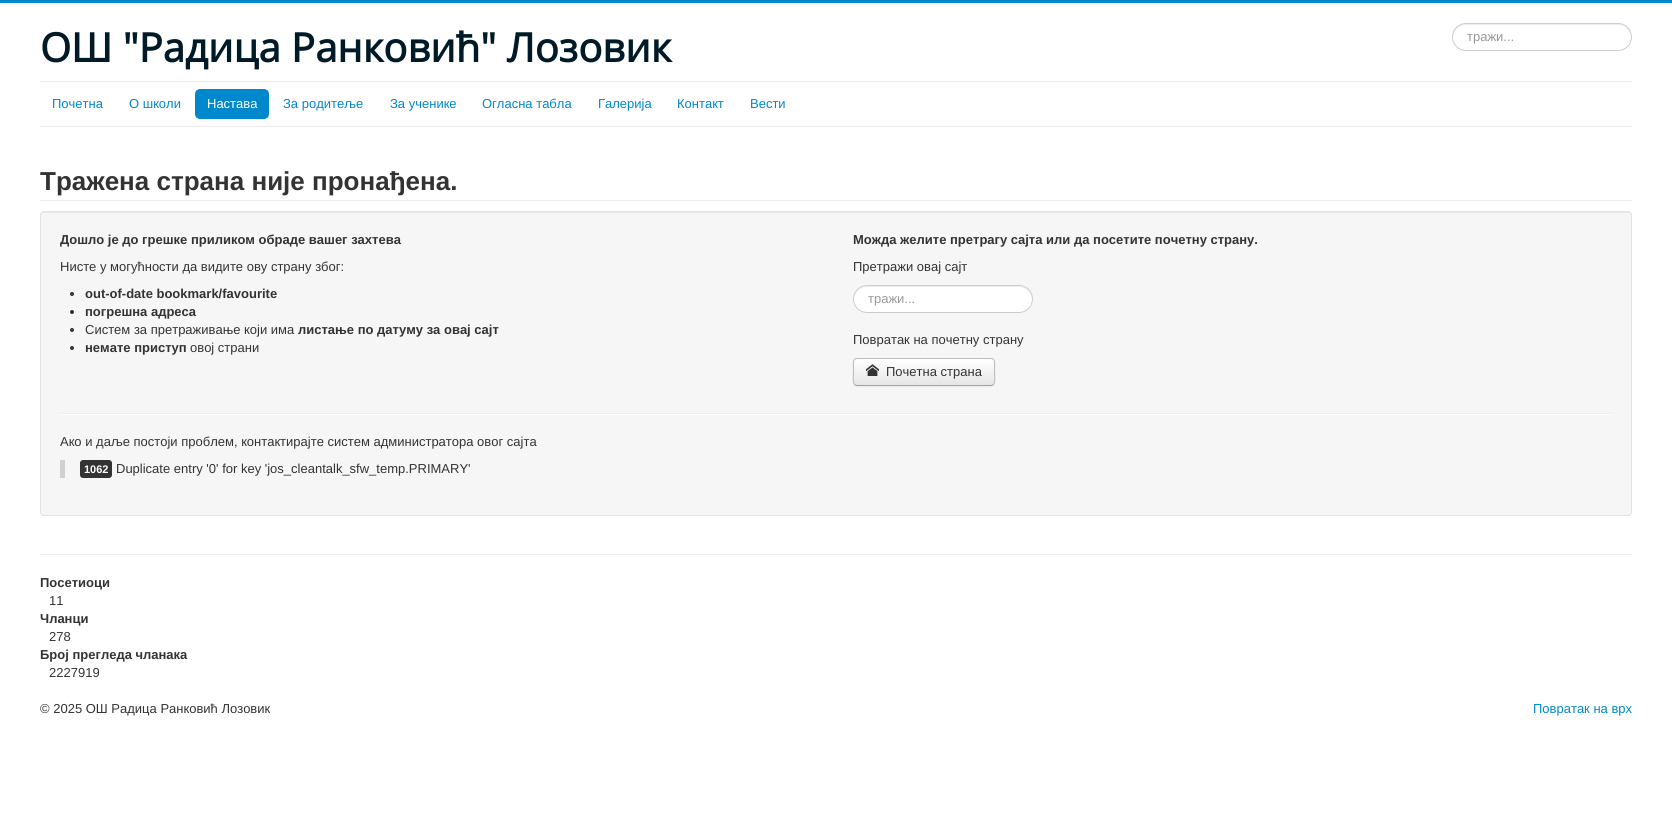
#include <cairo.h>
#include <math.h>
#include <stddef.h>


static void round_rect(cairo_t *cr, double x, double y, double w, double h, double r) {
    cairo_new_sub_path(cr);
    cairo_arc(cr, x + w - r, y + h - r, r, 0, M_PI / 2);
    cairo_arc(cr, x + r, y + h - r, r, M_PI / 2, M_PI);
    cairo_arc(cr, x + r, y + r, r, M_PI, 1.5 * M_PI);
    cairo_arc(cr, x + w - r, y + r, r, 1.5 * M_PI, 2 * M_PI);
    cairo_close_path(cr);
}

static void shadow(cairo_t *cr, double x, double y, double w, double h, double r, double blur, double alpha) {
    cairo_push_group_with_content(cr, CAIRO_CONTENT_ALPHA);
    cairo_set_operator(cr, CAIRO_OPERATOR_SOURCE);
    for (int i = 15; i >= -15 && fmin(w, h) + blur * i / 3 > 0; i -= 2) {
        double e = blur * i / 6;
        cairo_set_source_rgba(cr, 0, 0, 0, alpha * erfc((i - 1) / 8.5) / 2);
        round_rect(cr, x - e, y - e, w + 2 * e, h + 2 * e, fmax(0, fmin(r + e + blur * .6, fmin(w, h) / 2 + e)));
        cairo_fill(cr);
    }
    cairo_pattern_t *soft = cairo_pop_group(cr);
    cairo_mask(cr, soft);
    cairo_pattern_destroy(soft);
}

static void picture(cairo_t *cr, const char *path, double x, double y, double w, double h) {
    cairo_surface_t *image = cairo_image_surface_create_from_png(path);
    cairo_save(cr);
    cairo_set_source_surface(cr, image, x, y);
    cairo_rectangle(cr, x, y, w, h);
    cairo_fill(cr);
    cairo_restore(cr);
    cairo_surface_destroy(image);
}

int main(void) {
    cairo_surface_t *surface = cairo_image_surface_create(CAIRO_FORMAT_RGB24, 1672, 839);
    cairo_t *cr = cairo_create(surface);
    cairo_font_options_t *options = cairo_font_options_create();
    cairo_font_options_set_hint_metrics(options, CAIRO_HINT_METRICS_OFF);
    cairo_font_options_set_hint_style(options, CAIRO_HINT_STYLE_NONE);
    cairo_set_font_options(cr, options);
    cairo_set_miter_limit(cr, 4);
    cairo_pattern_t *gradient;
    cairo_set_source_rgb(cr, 1, 1, 1);
    cairo_paint(cr);
    cairo_set_source_rgb(cr, 0, 0.533, 0.8);
    cairo_rectangle(cr, 0, 0, 1672, 3);
    cairo_fill(cr);
    cairo_select_font_face(cr, "Open Sans", CAIRO_FONT_SLANT_NORMAL, CAIRO_FONT_WEIGHT_BOLD);
    cairo_set_font_size(cr, 40);
    cairo_set_source_rgb(cr, 0, 0.102, 0.153);
    cairo_move_to(cr, 40, 62);
    cairo_show_text(cr, "ОШ \"Радица Ранковић\" Лозовик");
    cairo_set_source_rgb(cr, 0.925, 0.925, 0.925);
    cairo_new_path(cr);
    cairo_move_to(cr, 1466, 25);
    cairo_line_to(cr, 1618, 25);
    cairo_curve_to(cr, 1625, 25, 1631, 31, 1631, 38);
    cairo_curve_to(cr, 1632, 18, 1602, 24, 1593, 24);
    cairo_line_to(cr, 1491, 24);
    cairo_curve_to(cr, 1482, 24, 1452, 18, 1453, 38);
    cairo_curve_to(cr, 1453, 31, 1459, 25, 1466, 25);
    cairo_close_path(cr);
    cairo_fill(cr);
    round_rect(cr, 1452.5, 23.5, 179, 27, 13.5);
    cairo_set_source_rgb(cr, 0.8, 0.8, 0.8);
    cairo_set_line_width(cr, 1);
    cairo_stroke(cr);
    cairo_select_font_face(cr, "Liberation Sans", CAIRO_FONT_SLANT_NORMAL, CAIRO_FONT_WEIGHT_NORMAL);
    cairo_set_font_size(cr, 13);
    cairo_set_source_rgb(cr, 0.6, 0.6, 0.6);
    cairo_move_to(cr, 1467, 41);
    cairo_show_text(cr, "тражи...");
    cairo_set_source_rgb(cr, 0.925, 0.925, 0.925);
    cairo_rectangle(cr, 40, 81, 1592, 1);
    cairo_fill(cr);
    cairo_rectangle(cr, 40, 126, 1592, 1);
    cairo_fill(cr);
    cairo_set_source_rgb(cr, 0, 0.533, 0.8);
    cairo_move_to(cr, 52, 108);
    cairo_show_text(cr, "Почетна");
    cairo_move_to(cr, 129, 108);
    cairo_show_text(cr, "О школи");
    round_rect(cr, 195, 89, 74, 30, 5);
    cairo_fill(cr);
    cairo_set_source_rgb(cr, 1, 1, 1);
    cairo_move_to(cr, 207, 108);
    cairo_show_text(cr, "Настава");
    cairo_set_source_rgb(cr, 0, 0.533, 0.8);
    cairo_move_to(cr, 283, 108);
    cairo_show_text(cr, "За родитеље");
    cairo_move_to(cr, 390, 108);
    cairo_show_text(cr, "За ученике");
    cairo_move_to(cr, 482, 108);
    cairo_show_text(cr, "Огласна табла");
    cairo_move_to(cr, 598, 108);
    cairo_show_text(cr, "Галерија");
    cairo_move_to(cr, 677, 108);
    cairo_show_text(cr, "Контакт");
    cairo_move_to(cr, 750, 108);
    cairo_show_text(cr, "Вести");
    cairo_set_source_rgb(cr, 0.933, 0.933, 0.933);
    cairo_rectangle(cr, 40, 200, 1592, 1);
    cairo_fill(cr);
    cairo_select_font_face(cr, "Liberation Sans", CAIRO_FONT_SLANT_NORMAL, CAIRO_FONT_WEIGHT_BOLD);
    cairo_set_font_size(cr, 26);
    cairo_set_source_rgb(cr, 0.2, 0.2, 0.2);
    cairo_move_to(cr, 40, 190);
    cairo_show_text(cr, "Тражена страна није пронађена.");
    cairo_set_source_rgb(cr, 0.961, 0.961, 0.961);
    round_rect(cr, 40, 211, 1592, 305, 4);
    cairo_fill(cr);
    cairo_set_source_rgb(cr, 0.914, 0.914, 0.914);
    cairo_new_path(cr);
    cairo_move_to(cr, 44, 213);
    cairo_line_to(cr, 1628, 213);
    cairo_curve_to(cr, 1630, 213, 1631, 214, 1631, 216);
    cairo_line_to(cr, 1631, 215);
    cairo_curve_to(cr, 1631, 213, 1630, 212, 1628, 212);
    cairo_line_to(cr, 44, 212);
    cairo_curve_to(cr, 42, 212, 41, 213, 41, 215);
    cairo_line_to(cr, 41, 216);
    cairo_curve_to(cr, 41, 214, 42, 213, 44, 213);
    cairo_close_path(cr);
    cairo_fill(cr);
    round_rect(cr, 40.5, 211.5, 1591, 304, 3.5);
    cairo_set_source_rgb(cr, 0.89, 0.89, 0.89);
    cairo_stroke(cr);
    cairo_set_font_size(cr, 13);
    cairo_set_source_rgb(cr, 0.2, 0.2, 0.2);
    cairo_move_to(cr, 60, 244);
    cairo_show_text(cr, "Дошло је до грешке приликом обраде вашег захтева");
    cairo_select_font_face(cr, "Liberation Sans", CAIRO_FONT_SLANT_NORMAL, CAIRO_FONT_WEIGHT_NORMAL);
    cairo_move_to(cr, 60, 271);
    cairo_show_text(cr, "Нисте у могућности да видите ову страну због:");
    cairo_new_path(cr);
    cairo_arc(cr, 72, 294, 2, 0, 2 * M_PI);
    cairo_fill(cr);
    cairo_select_font_face(cr, "Liberation Sans", CAIRO_FONT_SLANT_NORMAL, CAIRO_FONT_WEIGHT_BOLD);
    cairo_move_to(cr, 85, 298);
    cairo_show_text(cr, "out-of-date bookmark/favourite");
    cairo_new_path(cr);
    cairo_arc(cr, 72, 312, 2, 0, 2 * M_PI);
    cairo_fill(cr);
    cairo_move_to(cr, 85, 316);
    cairo_show_text(cr, "погрешна адреса");
    cairo_new_path(cr);
    cairo_arc(cr, 72, 330, 2, 0, 2 * M_PI);
    cairo_fill(cr);
    cairo_select_font_face(cr, "Liberation Sans", CAIRO_FONT_SLANT_NORMAL, CAIRO_FONT_WEIGHT_NORMAL);
    cairo_move_to(cr, 85, 334);
    cairo_show_text(cr, "Систем за претраживање који има");
    cairo_select_font_face(cr, "Liberation Sans", CAIRO_FONT_SLANT_NORMAL, CAIRO_FONT_WEIGHT_BOLD);
    cairo_move_to(cr, 298, 334);
    cairo_show_text(cr, "листање по датуму за овај сајт");
    cairo_new_path(cr);
    cairo_arc(cr, 72, 348, 2, 0, 2 * M_PI);
    cairo_fill(cr);
    cairo_move_to(cr, 85, 352);
    cairo_show_text(cr, "немате приступ");
    cairo_select_font_face(cr, "Liberation Sans", CAIRO_FONT_SLANT_NORMAL, CAIRO_FONT_WEIGHT_NORMAL);
    cairo_move_to(cr, 190, 352);
    cairo_show_text(cr, "овој страни");
    cairo_select_font_face(cr, "Liberation Sans", CAIRO_FONT_SLANT_NORMAL, CAIRO_FONT_WEIGHT_BOLD);
    cairo_move_to(cr, 853, 244);
    cairo_show_text(cr, "Можда желите претрагу сајта или да посетите почетну страну.");
    cairo_select_font_face(cr, "Liberation Sans", CAIRO_FONT_SLANT_NORMAL, CAIRO_FONT_WEIGHT_NORMAL);
    cairo_move_to(cr, 853, 271);
    cairo_show_text(cr, "Претражи овај сајт");
    cairo_set_source_rgb(cr, 1, 1, 1);
    round_rect(cr, 853, 285, 180, 28, 14);
    cairo_fill(cr);
    cairo_set_source_rgb(cr, 0.925, 0.925, 0.925);
    cairo_new_path(cr);
    cairo_move_to(cr, 867, 287);
    cairo_line_to(cr, 1019, 287);
    cairo_curve_to(cr, 1026, 287, 1032, 293, 1032, 300);
    cairo_curve_to(cr, 1033, 280, 1003, 286, 994, 286);
    cairo_line_to(cr, 892, 286);
    cairo_curve_to(cr, 883, 286, 853, 280, 854, 300);
    cairo_curve_to(cr, 854, 293, 860, 287, 867, 287);
    cairo_close_path(cr);
    cairo_fill(cr);
    round_rect(cr, 853.5, 285.5, 179, 27, 13.5);
    cairo_set_source_rgb(cr, 0.8, 0.8, 0.8);
    cairo_stroke(cr);
    cairo_set_source_rgb(cr, 0.6, 0.6, 0.6);
    cairo_move_to(cr, 868, 303);
    cairo_show_text(cr, "тражи...");
    cairo_set_source_rgb(cr, 0.2, 0.2, 0.2);
    cairo_move_to(cr, 853, 344);
    cairo_show_text(cr, "Повратак на почетну страну");
    cairo_set_source_rgb(cr, 0, 0, 0);
    shadow(cr, 853, 359, 142, 28, 4, 1, 0.05);
    cairo_save(cr);
    round_rect(cr, 853, 358, 142, 28, 4);
    cairo_clip(cr);
    gradient = cairo_pattern_create_linear(924, 359, 924, 385);
    cairo_pattern_add_color_stop_rgba(gradient, 0, 1, 1, 1, 1);
    cairo_pattern_add_color_stop_rgba(gradient, 1, 0.902, 0.902, 0.902, 1);
    cairo_set_source(cr, gradient);
    cairo_pattern_destroy(gradient);
    cairo_rectangle(cr, 853, 359, 142, 26);
    cairo_fill(cr);
    cairo_restore(cr);
    cairo_new_path(cr);
    cairo_move_to(cr, 993.5, 384.5);
    cairo_curve_to(cr, 993, 385, 992, 385.5, 991, 385.5);
    cairo_line_to(cr, 857, 385.5);
    cairo_curve_to(cr, 856, 385.5, 855, 385, 854.5, 384.5);
    cairo_set_source_rgb(cr, 0.635, 0.635, 0.635);
    cairo_stroke(cr);
    cairo_new_path(cr);
    cairo_move_to(cr, 854.5, 384.5);
    cairo_curve_to(cr, 852.5, 382, 853.5, 374.5, 853.5, 372);
    cairo_line_to(cr, 853.5, 365.5);
    cairo_curve_to(cr, 853.5, 362.5, 853, 358.5, 857, 358.5);
    cairo_line_to(cr, 991, 358.5);
    cairo_curve_to(cr, 995, 358.5, 994.5, 362.5, 994.5, 365.5);
    cairo_line_to(cr, 994.5, 372);
    cairo_curve_to(cr, 994.5, 374.5, 995.5, 382, 993.5, 384.5);
    cairo_set_source_rgb(cr, 0.733, 0.733, 0.733);
    cairo_stroke(cr);
    picture(cr, "img1.png", 866, 364, 13, 12);
    cairo_set_source_rgb(cr, 0.2, 0.2, 0.2);
    cairo_move_to(cr, 886, 376);
    cairo_show_text(cr, "Почетна страна");
    cairo_set_source_rgb(cr, 0.933, 0.933, 0.933);
    cairo_rectangle(cr, 60, 413, 1552, 1);
    cairo_fill(cr);
    cairo_set_source_rgb(cr, 1, 1, 1);
    cairo_rectangle(cr, 60, 414, 1552, 1);
    cairo_fill(cr);
    cairo_set_source_rgb(cr, 0.2, 0.2, 0.2);
    cairo_move_to(cr, 60, 446);
    cairo_show_text(cr, "Ако и даље постоји проблем, контактирајте систем администратора овог сајта");
    cairo_set_source_rgb(cr, 0.816, 0.816, 0.816);
    cairo_rectangle(cr, 60, 460, 5, 18);
    cairo_fill(cr);
    cairo_set_source_rgb(cr, 0.2, 0.2, 0.2);
    round_rect(cr, 80, 460, 32, 18, 3);
    cairo_fill(cr);
    cairo_select_font_face(cr, "Liberation Sans", CAIRO_FONT_SLANT_NORMAL, CAIRO_FONT_WEIGHT_BOLD);
    cairo_set_font_size(cr, 11);
    cairo_set_source_rgb(cr, 1, 1, 1);
    cairo_move_to(cr, 84, 473);
    cairo_show_text(cr, "1062");
    cairo_select_font_face(cr, "Liberation Sans", CAIRO_FONT_SLANT_NORMAL, CAIRO_FONT_WEIGHT_NORMAL);
    cairo_set_font_size(cr, 13);
    cairo_set_source_rgb(cr, 0.2, 0.2, 0.2);
    cairo_move_to(cr, 116, 473);
    cairo_show_text(cr, "Duplicate entry '0' for key 'jos_cleantalk_sfw_temp.PRIMARY'");
    cairo_set_source_rgb(cr, 0.933, 0.933, 0.933);
    cairo_rectangle(cr, 40, 554, 1592, 1);
    cairo_fill(cr);
    cairo_select_font_face(cr, "Liberation Sans", CAIRO_FONT_SLANT_NORMAL, CAIRO_FONT_WEIGHT_BOLD);
    cairo_set_source_rgb(cr, 0.2, 0.2, 0.2);
    cairo_move_to(cr, 40, 587);
    cairo_show_text(cr, "Посетиоци");
    cairo_select_font_face(cr, "Liberation Sans", CAIRO_FONT_SLANT_NORMAL, CAIRO_FONT_WEIGHT_NORMAL);
    cairo_move_to(cr, 49, 605);
    cairo_show_text(cr, "11");
    cairo_select_font_face(cr, "Liberation Sans", CAIRO_FONT_SLANT_NORMAL, CAIRO_FONT_WEIGHT_BOLD);
    cairo_move_to(cr, 40, 623);
    cairo_show_text(cr, "Чланци");
    cairo_select_font_face(cr, "Liberation Sans", CAIRO_FONT_SLANT_NORMAL, CAIRO_FONT_WEIGHT_NORMAL);
    cairo_move_to(cr, 49, 641);
    cairo_show_text(cr, "278");
    cairo_select_font_face(cr, "Liberation Sans", CAIRO_FONT_SLANT_NORMAL, CAIRO_FONT_WEIGHT_BOLD);
    cairo_move_to(cr, 40, 659);
    cairo_show_text(cr, "Број прегледа чланака");
    cairo_select_font_face(cr, "Liberation Sans", CAIRO_FONT_SLANT_NORMAL, CAIRO_FONT_WEIGHT_NORMAL);
    cairo_move_to(cr, 49, 677);
    cairo_show_text(cr, "2227919");
    cairo_move_to(cr, 40, 713);
    cairo_show_text(cr, "© 2025 ОШ Радица Ранковић Лозовик");
    cairo_set_source_rgb(cr, 0, 0.533, 0.8);
    cairo_move_to(cr, 1533, 713);
    cairo_show_text(cr, "Повратак на врх");
    cairo_surface_write_to_png(surface, "page.png");
    cairo_font_options_destroy(options);
    cairo_destroy(cr);
    cairo_surface_destroy(surface);
    return 0;
}
